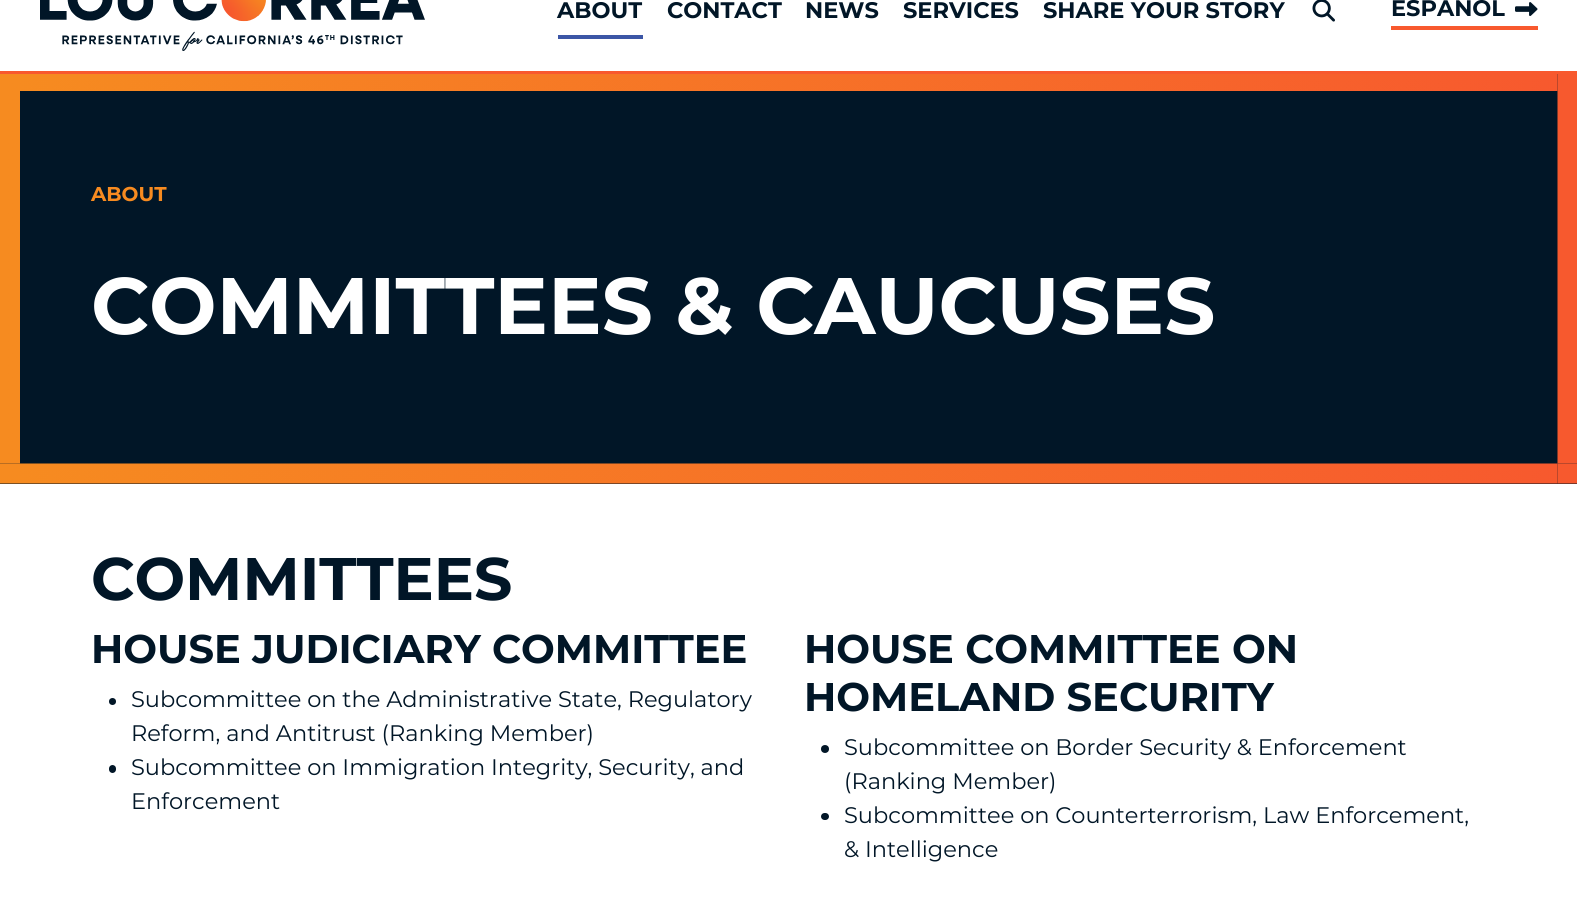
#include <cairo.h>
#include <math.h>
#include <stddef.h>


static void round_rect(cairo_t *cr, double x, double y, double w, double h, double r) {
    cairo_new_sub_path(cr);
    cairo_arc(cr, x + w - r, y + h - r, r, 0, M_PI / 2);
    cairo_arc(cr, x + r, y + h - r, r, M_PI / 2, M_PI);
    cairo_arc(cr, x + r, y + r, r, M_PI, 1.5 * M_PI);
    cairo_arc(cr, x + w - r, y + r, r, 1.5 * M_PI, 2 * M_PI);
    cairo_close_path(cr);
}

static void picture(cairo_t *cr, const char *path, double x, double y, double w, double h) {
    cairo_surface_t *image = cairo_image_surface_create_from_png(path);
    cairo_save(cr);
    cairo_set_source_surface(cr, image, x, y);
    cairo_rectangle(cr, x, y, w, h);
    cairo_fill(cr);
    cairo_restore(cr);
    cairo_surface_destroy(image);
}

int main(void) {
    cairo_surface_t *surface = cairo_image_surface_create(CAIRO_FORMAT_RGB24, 1577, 909);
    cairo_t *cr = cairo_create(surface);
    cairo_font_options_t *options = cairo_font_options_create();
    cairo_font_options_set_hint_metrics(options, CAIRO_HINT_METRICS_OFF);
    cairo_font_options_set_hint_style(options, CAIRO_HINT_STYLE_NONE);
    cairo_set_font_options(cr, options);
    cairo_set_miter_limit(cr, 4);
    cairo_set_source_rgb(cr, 1, 1, 1);
    cairo_paint(cr);
    cairo_set_source_rgb(cr, 0.969, 0.349, 0.18);
    cairo_new_path(cr);
    cairo_move_to(cr, 0, 71);
    cairo_line_to(cr, 0, 74);
    cairo_line_to(cr, 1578, 74);
    cairo_line_to(cr, 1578, -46);
    cairo_line_to(cr, 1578, 71);
    cairo_close_path(cr);
    cairo_fill(cr);
    picture(cr, "img1.png", 40, 0, 385, 51);
    cairo_select_font_face(cr, "Montserrat", CAIRO_FONT_SLANT_NORMAL, CAIRO_FONT_WEIGHT_BOLD);
    cairo_set_font_size(cr, 22.5);
    cairo_set_source_rgb(cr, 0.004, 0.086, 0.153);
    cairo_move_to(cr, 557, 18);
    cairo_show_text(cr, "ABOUT");
    cairo_set_source_rgb(cr, 0.235, 0.337, 0.651);
    cairo_rectangle(cr, 558, 35, 85, 4);
    cairo_fill(cr);
    cairo_set_source_rgb(cr, 0.004, 0.086, 0.153);
    cairo_move_to(cr, 667, 18);
    cairo_show_text(cr, "CONTACT");
    cairo_move_to(cr, 805, 18);
    cairo_show_text(cr, "NEWS");
    cairo_move_to(cr, 903, 18);
    cairo_show_text(cr, "SERVICES");
    cairo_move_to(cr, 1043, 18);
    cairo_show_text(cr, "SHARE YOUR STORY");
    picture(cr, "img2.png", 1312, 0, 23, 22);
    cairo_set_source_rgb(cr, 0.969, 0.349, 0.18);
    cairo_rectangle(cr, 1391, 26, 147, 4);
    cairo_fill(cr);
    cairo_set_source_rgb(cr, 0.004, 0.086, 0.153);
    cairo_move_to(cr, 1391, 16);
    cairo_show_text(cr, "ESPAÑOL");
    picture(cr, "img3.png", 1515, 2, 23, 14);
    cairo_rectangle(cr, 0, 74, 1577, 410);
    cairo_fill(cr);
    picture(cr, "img4.png", 0, 74, 1577, 410);
    cairo_set_font_size(cr, 20);
    cairo_set_source_rgb(cr, 0.965, 0.545, 0.125);
    cairo_move_to(cr, 91, 201);
    cairo_show_text(cr, "ABOUT");
    cairo_set_font_size(cr, 80);
    cairo_set_source_rgb(cr, 1, 1, 1);
    cairo_move_to(cr, 91, 334);
    cairo_show_text(cr, "COMMITTEES & CAUCUSES");
    cairo_set_font_size(cr, 60);
    cairo_set_source_rgb(cr, 0.004, 0.086, 0.153);
    cairo_move_to(cr, 91, 600);
    cairo_show_text(cr, "COMMITTEES");
    cairo_set_font_size(cr, 40);
    cairo_move_to(cr, 91, 663);
    cairo_show_text(cr, "HOUSE JUDICIARY COMMITTEE");
    cairo_new_path(cr);
    cairo_arc(cr, 112.5, 701.5, 3.5, 0, 2 * M_PI);
    cairo_fill(cr);
    cairo_select_font_face(cr, "Montserrat", CAIRO_FONT_SLANT_NORMAL, CAIRO_FONT_WEIGHT_NORMAL);
    cairo_set_font_size(cr, 22.5);
    cairo_move_to(cr, 131, 707);
    cairo_show_text(cr, "Subcommittee on the Administrative State, Regulatory");
    cairo_move_to(cr, 131, 741);
    cairo_show_text(cr, "Reform, and Antitrust (Ranking Member)");
    round_rect(cr, 109, 765, 7, 8, 3.5);
    cairo_fill(cr);
    cairo_move_to(cr, 131, 775);
    cairo_show_text(cr, "Subcommittee on Immigration Integrity, Security, and");
    cairo_move_to(cr, 131, 809);
    cairo_show_text(cr, "Enforcement");
    cairo_select_font_face(cr, "Montserrat", CAIRO_FONT_SLANT_NORMAL, CAIRO_FONT_WEIGHT_BOLD);
    cairo_set_font_size(cr, 40);
    cairo_move_to(cr, 804, 663);
    cairo_show_text(cr, "HOUSE COMMITTEE ON");
    cairo_move_to(cr, 804, 711);
    cairo_show_text(cr, "HOMELAND SECURITY");
    cairo_new_path(cr);
    cairo_arc(cr, 825, 749, 4, 0, 2 * M_PI);
    cairo_fill(cr);
    cairo_select_font_face(cr, "Montserrat", CAIRO_FONT_SLANT_NORMAL, CAIRO_FONT_WEIGHT_NORMAL);
    cairo_set_font_size(cr, 22.5);
    cairo_move_to(cr, 844, 755);
    cairo_show_text(cr, "Subcommittee on Border Security & Enforcement");
    cairo_move_to(cr, 844, 789);
    cairo_show_text(cr, "(Ranking Member)");
    round_rect(cr, 821, 813, 8, 7, 3.5);
    cairo_fill(cr);
    cairo_move_to(cr, 844, 823);
    cairo_show_text(cr, "Subcommittee on Counterterrorism, Law Enforcement,");
    cairo_move_to(cr, 844, 857);
    cairo_show_text(cr, "& Intelligence");
    cairo_surface_write_to_png(surface, "page.png");
    cairo_font_options_destroy(options);
    cairo_destroy(cr);
    cairo_surface_destroy(surface);
    return 0;
}
